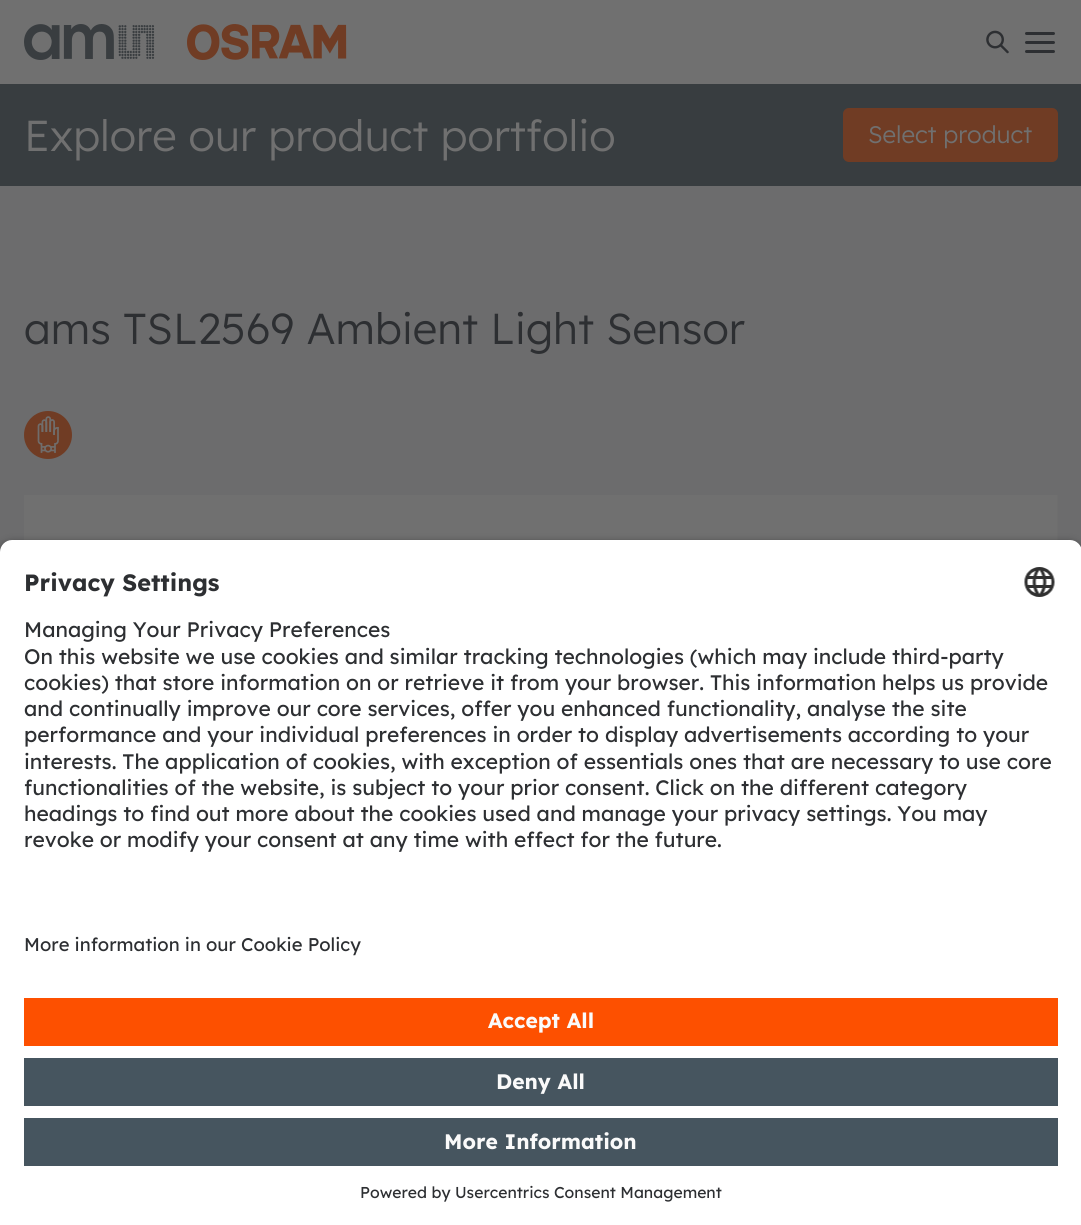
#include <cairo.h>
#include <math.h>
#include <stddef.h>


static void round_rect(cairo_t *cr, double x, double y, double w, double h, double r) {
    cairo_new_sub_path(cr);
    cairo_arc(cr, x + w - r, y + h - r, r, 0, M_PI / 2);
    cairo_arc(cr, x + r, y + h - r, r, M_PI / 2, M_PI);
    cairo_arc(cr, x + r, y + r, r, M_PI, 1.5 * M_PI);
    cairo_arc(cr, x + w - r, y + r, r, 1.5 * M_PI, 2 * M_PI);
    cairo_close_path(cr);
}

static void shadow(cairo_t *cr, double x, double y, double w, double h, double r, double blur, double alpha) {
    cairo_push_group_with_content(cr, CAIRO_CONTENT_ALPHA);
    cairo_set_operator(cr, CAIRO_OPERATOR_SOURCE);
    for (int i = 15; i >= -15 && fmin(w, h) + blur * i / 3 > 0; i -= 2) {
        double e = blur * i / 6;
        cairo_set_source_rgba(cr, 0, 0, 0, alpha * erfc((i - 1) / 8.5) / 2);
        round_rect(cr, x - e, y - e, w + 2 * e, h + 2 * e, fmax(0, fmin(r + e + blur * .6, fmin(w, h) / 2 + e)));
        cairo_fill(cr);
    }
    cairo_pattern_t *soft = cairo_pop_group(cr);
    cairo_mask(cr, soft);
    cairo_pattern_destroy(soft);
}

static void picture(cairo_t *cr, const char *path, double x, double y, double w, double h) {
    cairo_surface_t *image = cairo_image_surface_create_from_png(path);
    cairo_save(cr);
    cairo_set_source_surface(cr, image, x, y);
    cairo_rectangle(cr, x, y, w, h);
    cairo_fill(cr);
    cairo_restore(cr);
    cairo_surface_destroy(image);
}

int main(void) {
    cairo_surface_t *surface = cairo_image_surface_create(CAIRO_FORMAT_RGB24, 1081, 1225);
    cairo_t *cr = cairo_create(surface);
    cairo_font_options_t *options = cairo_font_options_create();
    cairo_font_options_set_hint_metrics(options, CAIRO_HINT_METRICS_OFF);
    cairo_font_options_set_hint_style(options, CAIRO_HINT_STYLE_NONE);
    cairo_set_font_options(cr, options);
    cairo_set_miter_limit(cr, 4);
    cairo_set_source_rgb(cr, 0.424, 0.424, 0.427);
    cairo_paint(cr);
    cairo_set_source_rgb(cr, 0.439, 0.439, 0.439);
    cairo_rectangle(cr, 0, 0, 1081, 84);
    cairo_fill(cr);
    picture(cr, "img1.png", 24, 24, 323, 36);
    picture(cr, "img2.png", 986, 30, 23, 24);
    cairo_set_source_rgb(cr, 0.176, 0.184, 0.196);
    round_rect(cr, 1025, 41, 30, 3, 1.5);
    cairo_fill(cr);
    round_rect(cr, 1025, 32, 30, 3, 1.5);
    cairo_fill(cr);
    round_rect(cr, 1025, 50, 30, 3, 1.5);
    cairo_fill(cr);
    cairo_set_source_rgb(cr, 0.22, 0.239, 0.251);
    cairo_rectangle(cr, 0, 84, 1081, 102);
    cairo_fill(cr);
    cairo_select_font_face(cr, "Lexend Light", CAIRO_FONT_SLANT_NORMAL, CAIRO_FONT_WEIGHT_NORMAL);
    cairo_set_font_size(cr, 43.25);
    cairo_set_source_rgb(cr, 0.439, 0.439, 0.439);
    cairo_move_to(cr, 24, 151);
    cairo_show_text(cr, "Explore our product portfolio");
    cairo_set_source_rgb(cr, 0.439, 0.235, 0.141);
    round_rect(cr, 843, 108, 215, 54, 6);
    cairo_fill(cr);
    cairo_set_font_size(cr, 24);
    cairo_set_source_rgb(cr, 0.439, 0.439, 0.439);
    cairo_move_to(cr, 868, 143);
    cairo_show_text(cr, "Select product");
    cairo_set_font_size(cr, 43.25);
    cairo_set_source_rgb(cr, 0.176, 0.184, 0.196);
    cairo_move_to(cr, 24, 344);
    cairo_show_text(cr, "ams TSL2569 Ambient Light Sensor");
    picture(cr, "img3.png", 24, 411, 48, 48);
    picture(cr, "img4.png", 24, 495, 1034, 45);
    cairo_set_source_rgb(cr, 0, 0, 0);
    shadow(cr, 0, 545, 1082, 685, 12, 5, 0.8);
    cairo_set_source_rgb(cr, 1, 1, 1);
    cairo_new_path(cr);
    cairo_move_to(cr, 12, 540);
    cairo_line_to(cr, 1070, 540);
    cairo_curve_to(cr, 1076.5, 540, 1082, 545.5, 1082, 552);
    cairo_line_to(cr, 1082, 911);
    cairo_line_to(cr, 0, 911);
    cairo_line_to(cr, 0, 552);
    cairo_curve_to(cr, 0, 545.5, 5.5, 540, 12, 540);
    cairo_close_path(cr);
    cairo_fill(cr);
    cairo_select_font_face(cr, "Lexend", CAIRO_FONT_SLANT_NORMAL, CAIRO_FONT_WEIGHT_BOLD);
    cairo_set_font_size(cr, 23.5);
    cairo_set_source_rgb(cr, 0.176, 0.184, 0.196);
    cairo_move_to(cr, 24, 591);
    cairo_show_text(cr, "Privacy Settings");
    picture(cr, "img5.png", 1024, 567, 31, 30);
    cairo_select_font_face(cr, "Lexend", CAIRO_FONT_SLANT_NORMAL, CAIRO_FONT_WEIGHT_NORMAL);
    cairo_set_font_size(cr, 21);
    cairo_move_to(cr, 24, 637);
    cairo_show_text(cr, "Managing Your Privacy Preferences");
    cairo_move_to(cr, 24, 664);
    cairo_show_text(cr, "On this website we use cookies and similar tracking technologies (which may include third-party");
    cairo_move_to(cr, 24, 690);
    cairo_show_text(cr, "cookies) that store information on or retrieve it from your browser. This information helps us provide");
    cairo_move_to(cr, 24, 716);
    cairo_show_text(cr, "and continually improve our core services, offer you enhanced functionality, analyse the site");
    cairo_move_to(cr, 24, 742);
    cairo_show_text(cr, "performance and your individual preferences in order to display advertisements according to your");
    cairo_move_to(cr, 24, 769);
    cairo_show_text(cr, "interests. The application of cookies, with exception of essentials ones that are necessary to use core");
    cairo_move_to(cr, 24, 795);
    cairo_show_text(cr, "functionalities of the website, is subject to your prior consent. Click on the different category");
    cairo_move_to(cr, 24, 821);
    cairo_show_text(cr, "headings to find out more about the cookies used and manage your privacy settings. You may");
    cairo_move_to(cr, 24, 847);
    cairo_show_text(cr, "revoke or modify your consent at any time with effect for the future.");
    cairo_set_source_rgb(cr, 1, 1, 1);
    cairo_rectangle(cr, 0, 911, 1081, 314);
    cairo_fill(cr);
    cairo_set_font_size(cr, 18.4);
    cairo_set_source_rgb(cr, 0.176, 0.184, 0.196);
    cairo_move_to(cr, 24, 951);
    cairo_show_text(cr, "More information in our Cookie Policy");
    cairo_set_source_rgb(cr, 0.992, 0.314, 0);
    cairo_rectangle(cr, 24, 998, 1034, 48);
    cairo_fill(cr);
    cairo_select_font_face(cr, "Lexend", CAIRO_FONT_SLANT_NORMAL, CAIRO_FONT_WEIGHT_BOLD);
    cairo_set_font_size(cr, 21);
    cairo_set_source_rgb(cr, 0.98, 0.98, 0.98);
    cairo_move_to(cr, 488, 1028);
    cairo_show_text(cr, "Accept All");
    cairo_set_source_rgb(cr, 0.275, 0.333, 0.373);
    cairo_rectangle(cr, 24, 1058, 1034, 48);
    cairo_fill(cr);
    cairo_set_source_rgb(cr, 0.98, 0.98, 0.98);
    cairo_move_to(cr, 496, 1089);
    cairo_show_text(cr, "Deny All");
    cairo_set_source_rgb(cr, 0.275, 0.333, 0.373);
    cairo_rectangle(cr, 24, 1118, 1034, 48);
    cairo_fill(cr);
    cairo_set_source_rgb(cr, 0.98, 0.98, 0.98);
    cairo_move_to(cr, 444, 1149);
    cairo_show_text(cr, "More Information");
    cairo_select_font_face(cr, "Lexend", CAIRO_FONT_SLANT_NORMAL, CAIRO_FONT_WEIGHT_NORMAL);
    cairo_set_font_size(cr, 15.75);
    cairo_set_source_rgb(cr, 0.176, 0.184, 0.196);
    cairo_move_to(cr, 360, 1198);
    cairo_show_text(cr, "Powered by Usercentrics Consent Management");
    cairo_surface_write_to_png(surface, "page.png");
    cairo_font_options_destroy(options);
    cairo_destroy(cr);
    cairo_surface_destroy(surface);
    return 0;
}
